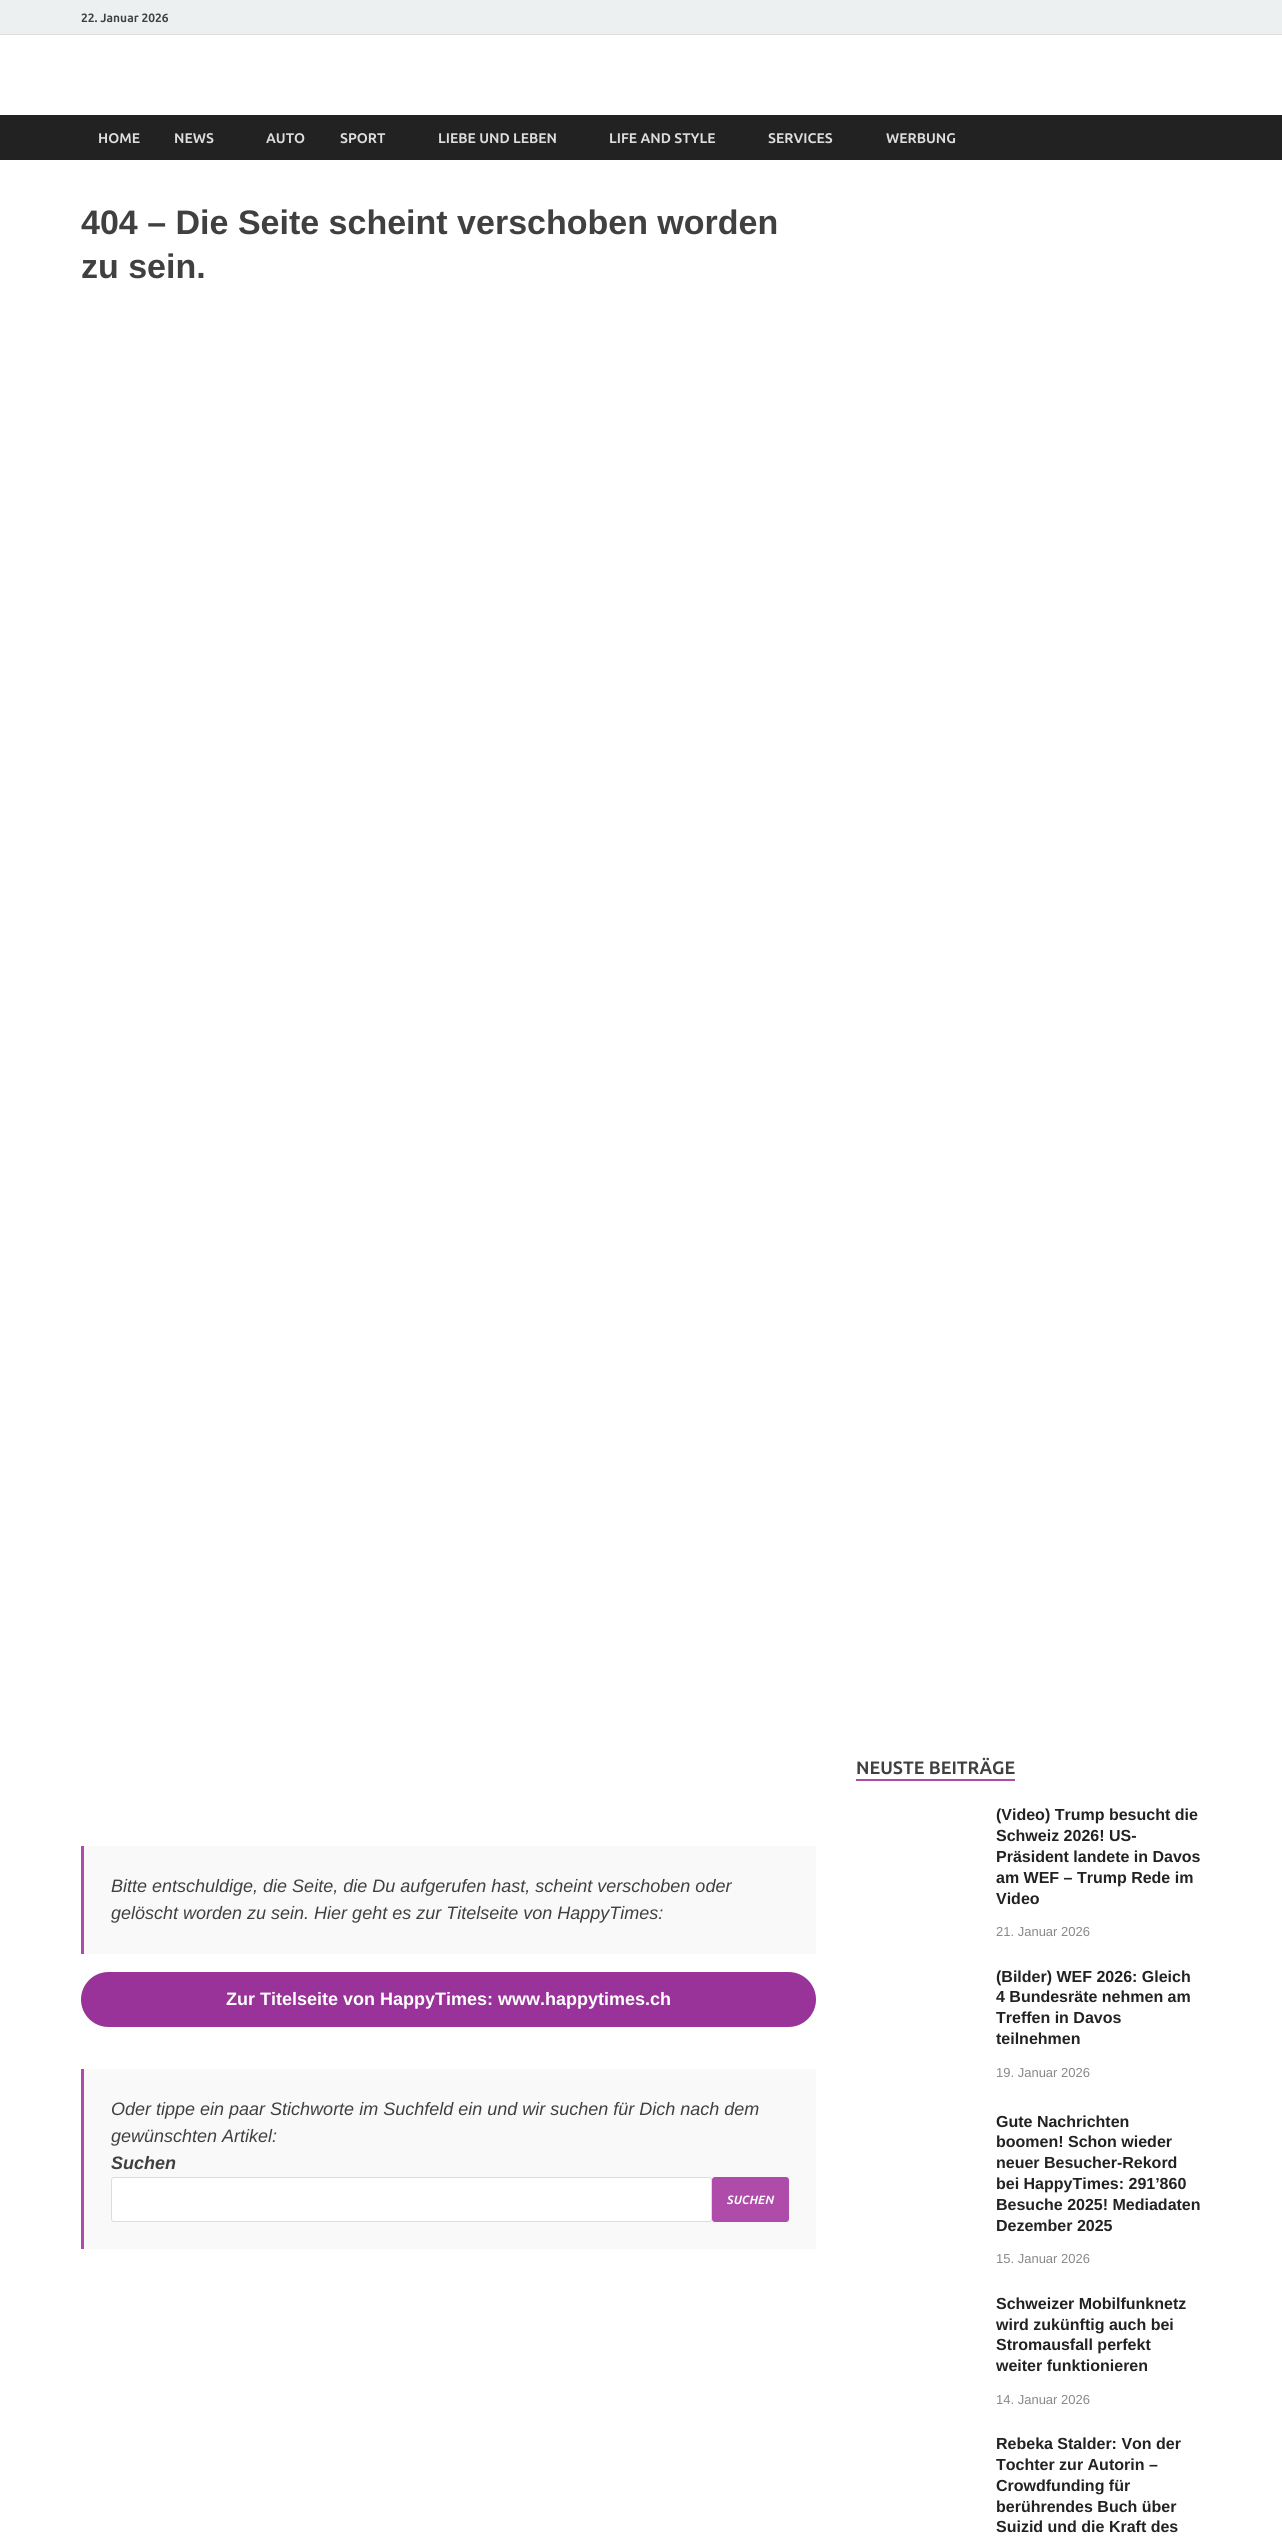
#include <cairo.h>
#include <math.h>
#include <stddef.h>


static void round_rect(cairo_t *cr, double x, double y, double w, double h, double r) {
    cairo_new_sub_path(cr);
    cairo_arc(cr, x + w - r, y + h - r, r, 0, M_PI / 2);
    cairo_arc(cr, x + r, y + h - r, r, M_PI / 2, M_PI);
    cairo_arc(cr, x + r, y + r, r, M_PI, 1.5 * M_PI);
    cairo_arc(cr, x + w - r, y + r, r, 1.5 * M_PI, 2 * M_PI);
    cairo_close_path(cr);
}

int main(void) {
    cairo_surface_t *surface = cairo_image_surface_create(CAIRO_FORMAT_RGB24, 1282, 2539);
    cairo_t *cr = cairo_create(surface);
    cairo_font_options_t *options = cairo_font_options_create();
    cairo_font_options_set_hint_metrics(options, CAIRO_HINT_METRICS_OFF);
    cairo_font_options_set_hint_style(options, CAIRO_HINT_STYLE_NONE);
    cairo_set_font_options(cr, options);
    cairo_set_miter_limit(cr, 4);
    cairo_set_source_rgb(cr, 1, 1, 1);
    cairo_paint(cr);
    cairo_set_source_rgb(cr, 0.925, 0.941, 0.945);
    cairo_rectangle(cr, 0, 0, 1282, 34);
    cairo_fill(cr);
    cairo_set_source_rgb(cr, 0.867, 0.867, 0.867);
    cairo_rectangle(cr, 0, 34, 1282, 1);
    cairo_fill(cr);
    cairo_select_font_face(cr, "Ubuntu", CAIRO_FONT_SLANT_NORMAL, CAIRO_FONT_WEIGHT_BOLD);
    cairo_set_font_size(cr, 12);
    cairo_set_source_rgb(cr, 0.251, 0.251, 0.251);
    cairo_move_to(cr, 81, 22);
    cairo_show_text(cr, "22. Januar 2026");
    cairo_set_source_rgb(cr, 0.133, 0.133, 0.133);
    cairo_rectangle(cr, 0, 115, 1282, 45);
    cairo_fill(cr);
    cairo_set_font_size(cr, 14);
    cairo_set_source_rgb(cr, 0.867, 0.867, 0.867);
    cairo_move_to(cr, 98, 143);
    cairo_show_text(cr, "HOME");
    cairo_move_to(cr, 174, 143);
    cairo_show_text(cr, "NEWS");
    cairo_move_to(cr, 266, 143);
    cairo_show_text(cr, "AUTO");
    cairo_move_to(cr, 340, 143);
    cairo_show_text(cr, "SPORT");
    cairo_move_to(cr, 438, 143);
    cairo_show_text(cr, "LIEBE UND LEBEN");
    cairo_move_to(cr, 609, 143);
    cairo_show_text(cr, "LIFE AND STYLE");
    cairo_move_to(cr, 768, 143);
    cairo_show_text(cr, "SERVICES");
    cairo_move_to(cr, 886, 143);
    cairo_show_text(cr, "WERBUNG");
    cairo_select_font_face(cr, "Liberation Sans", CAIRO_FONT_SLANT_NORMAL, CAIRO_FONT_WEIGHT_BOLD);
    cairo_set_font_size(cr, 34);
    cairo_set_source_rgb(cr, 0.251, 0.251, 0.251);
    cairo_move_to(cr, 81, 234);
    cairo_show_text(cr, "404 – Die Seite scheint verschoben worden");
    cairo_move_to(cr, 81, 278);
    cairo_show_text(cr, "zu sein.");
    cairo_set_source_rgb(cr, 0.973, 0.973, 0.973);
    cairo_rectangle(cr, 84, 1846, 732, 108);
    cairo_fill(cr);
    cairo_set_source_rgb(cr, 0.686, 0.294, 0.663);
    cairo_rectangle(cr, 81, 1846, 3, 108);
    cairo_fill(cr);
    cairo_select_font_face(cr, "Liberation Sans", CAIRO_FONT_SLANT_ITALIC, CAIRO_FONT_WEIGHT_NORMAL);
    cairo_set_font_size(cr, 18);
    cairo_set_source_rgb(cr, 0.251, 0.251, 0.251);
    cairo_move_to(cr, 111, 1892);
    cairo_show_text(cr, "Bitte entschuldige, die Seite, die Du aufgerufen hast, scheint verschoben oder");
    cairo_move_to(cr, 111, 1919);
    cairo_show_text(cr, "gelöscht worden zu sein. Hier geht es zur Titelseite von HappyTimes:");
    cairo_set_source_rgb(cr, 0.6, 0.2, 0.6);
    round_rect(cr, 81, 1972, 735, 55, 27.5);
    cairo_fill(cr);
    cairo_select_font_face(cr, "Liberation Sans", CAIRO_FONT_SLANT_NORMAL, CAIRO_FONT_WEIGHT_BOLD);
    cairo_set_source_rgb(cr, 1, 1, 1);
    cairo_move_to(cr, 226, 2005);
    cairo_show_text(cr, "Zur Titelseite von HappyTimes: www.happytimes.ch");
    cairo_set_source_rgb(cr, 0.973, 0.973, 0.973);
    cairo_rectangle(cr, 84, 2069, 732, 180);
    cairo_fill(cr);
    cairo_set_source_rgb(cr, 0.686, 0.294, 0.663);
    cairo_rectangle(cr, 81, 2069, 3, 180);
    cairo_fill(cr);
    cairo_select_font_face(cr, "Liberation Sans", CAIRO_FONT_SLANT_ITALIC, CAIRO_FONT_WEIGHT_NORMAL);
    cairo_set_source_rgb(cr, 0.251, 0.251, 0.251);
    cairo_move_to(cr, 111, 2115);
    cairo_show_text(cr, "Oder tippe ein paar Stichworte im Suchfeld ein und wir suchen für Dich nach dem");
    cairo_move_to(cr, 111, 2142);
    cairo_show_text(cr, "gewünschten Artikel:");
    cairo_select_font_face(cr, "Liberation Sans", CAIRO_FONT_SLANT_ITALIC, CAIRO_FONT_WEIGHT_BOLD);
    cairo_move_to(cr, 111, 2169);
    cairo_show_text(cr, "Suchen");
    cairo_set_source_rgb(cr, 1, 1, 1);
    round_rect(cr, 111.5, 2177.5, 600, 44, 2.5);
    cairo_fill_preserve(cr);
    cairo_set_source_rgb(cr, 0.867, 0.867, 0.867);
    cairo_set_line_width(cr, 1);
    cairo_stroke(cr);
    cairo_set_source_rgb(cr, 0.686, 0.294, 0.663);
    round_rect(cr, 712, 2177, 77, 45, 3);
    cairo_fill(cr);
    cairo_select_font_face(cr, "Ubuntu", CAIRO_FONT_SLANT_ITALIC, CAIRO_FONT_WEIGHT_BOLD);
    cairo_set_font_size(cr, 12);
    cairo_set_source_rgb(cr, 1, 1, 1);
    cairo_move_to(cr, 727, 2204);
    cairo_show_text(cr, "SUCHEN");
    cairo_set_source_rgb(cr, 0.686, 0.294, 0.663);
    cairo_rectangle(cr, 856, 1779, 159, 2);
    cairo_fill(cr);
    cairo_select_font_face(cr, "Ubuntu", CAIRO_FONT_SLANT_NORMAL, CAIRO_FONT_WEIGHT_BOLD);
    cairo_set_font_size(cr, 18);
    cairo_set_source_rgb(cr, 0.251, 0.251, 0.251);
    cairo_move_to(cr, 856, 1774);
    cairo_show_text(cr, "NEUSTE BEITRÄGE");
    cairo_select_font_face(cr, "Liberation Sans", CAIRO_FONT_SLANT_NORMAL, CAIRO_FONT_WEIGHT_BOLD);
    cairo_set_font_size(cr, 16);
    cairo_set_source_rgb(cr, 0.133, 0.133, 0.133);
    cairo_move_to(cr, 996, 1820);
    cairo_show_text(cr, "(Video) Trump besucht die");
    cairo_move_to(cr, 996, 1841);
    cairo_show_text(cr, "Schweiz 2026! US-");
    cairo_move_to(cr, 996, 1862);
    cairo_show_text(cr, "Präsident landete in Davos");
    cairo_move_to(cr, 996, 1883);
    cairo_show_text(cr, "am WEF – Trump Rede im");
    cairo_move_to(cr, 996, 1904);
    cairo_show_text(cr, "Video");
    cairo_select_font_face(cr, "Liberation Sans", CAIRO_FONT_SLANT_NORMAL, CAIRO_FONT_WEIGHT_NORMAL);
    cairo_set_font_size(cr, 13);
    cairo_set_source_rgb(cr, 0.533, 0.533, 0.533);
    cairo_move_to(cr, 996, 1936);
    cairo_show_text(cr, "21. Januar 2026");
    cairo_select_font_face(cr, "Liberation Sans", CAIRO_FONT_SLANT_NORMAL, CAIRO_FONT_WEIGHT_BOLD);
    cairo_set_font_size(cr, 16);
    cairo_set_source_rgb(cr, 0.133, 0.133, 0.133);
    cairo_move_to(cr, 996, 1982);
    cairo_show_text(cr, "(Bilder) WEF 2026: Gleich");
    cairo_move_to(cr, 996, 2002);
    cairo_show_text(cr, "4 Bundesräte nehmen am");
    cairo_move_to(cr, 996, 2023);
    cairo_show_text(cr, "Treffen in Davos");
    cairo_move_to(cr, 996, 2044);
    cairo_show_text(cr, "teilnehmen");
    cairo_select_font_face(cr, "Liberation Sans", CAIRO_FONT_SLANT_NORMAL, CAIRO_FONT_WEIGHT_NORMAL);
    cairo_set_font_size(cr, 13);
    cairo_set_source_rgb(cr, 0.533, 0.533, 0.533);
    cairo_move_to(cr, 996, 2077);
    cairo_show_text(cr, "19. Januar 2026");
    cairo_select_font_face(cr, "Liberation Sans", CAIRO_FONT_SLANT_NORMAL, CAIRO_FONT_WEIGHT_BOLD);
    cairo_set_font_size(cr, 16);
    cairo_set_source_rgb(cr, 0.133, 0.133, 0.133);
    cairo_move_to(cr, 996, 2127);
    cairo_show_text(cr, "Gute Nachrichten");
    cairo_move_to(cr, 996, 2147);
    cairo_show_text(cr, "boomen! Schon wieder");
    cairo_move_to(cr, 996, 2168);
    cairo_show_text(cr, "neuer Besucher-Rekord");
    cairo_move_to(cr, 996, 2189);
    cairo_show_text(cr, "bei HappyTimes: 291’860");
    cairo_move_to(cr, 996, 2210);
    cairo_show_text(cr, "Besuche 2025! Mediadaten");
    cairo_move_to(cr, 996, 2231);
    cairo_show_text(cr, "Dezember 2025");
    cairo_select_font_face(cr, "Liberation Sans", CAIRO_FONT_SLANT_NORMAL, CAIRO_FONT_WEIGHT_NORMAL);
    cairo_set_font_size(cr, 13);
    cairo_set_source_rgb(cr, 0.533, 0.533, 0.533);
    cairo_move_to(cr, 996, 2263);
    cairo_show_text(cr, "15. Januar 2026");
    cairo_select_font_face(cr, "Liberation Sans", CAIRO_FONT_SLANT_NORMAL, CAIRO_FONT_WEIGHT_BOLD);
    cairo_set_font_size(cr, 16);
    cairo_set_source_rgb(cr, 0.133, 0.133, 0.133);
    cairo_move_to(cr, 996, 2309);
    cairo_show_text(cr, "Schweizer Mobilfunknetz");
    cairo_move_to(cr, 996, 2330);
    cairo_show_text(cr, "wird zukünftig auch bei");
    cairo_move_to(cr, 996, 2350);
    cairo_show_text(cr, "Stromausfall perfekt");
    cairo_move_to(cr, 996, 2371);
    cairo_show_text(cr, "weiter funktionieren");
    cairo_select_font_face(cr, "Liberation Sans", CAIRO_FONT_SLANT_NORMAL, CAIRO_FONT_WEIGHT_NORMAL);
    cairo_set_font_size(cr, 13);
    cairo_set_source_rgb(cr, 0.533, 0.533, 0.533);
    cairo_move_to(cr, 996, 2404);
    cairo_show_text(cr, "14. Januar 2026");
    cairo_select_font_face(cr, "Liberation Sans", CAIRO_FONT_SLANT_NORMAL, CAIRO_FONT_WEIGHT_BOLD);
    cairo_set_font_size(cr, 16);
    cairo_set_source_rgb(cr, 0.133, 0.133, 0.133);
    cairo_move_to(cr, 996, 2449);
    cairo_show_text(cr, "Rebeka Stalder: Von der");
    cairo_move_to(cr, 996, 2470);
    cairo_show_text(cr, "Tochter zur Autorin –");
    cairo_move_to(cr, 996, 2491);
    cairo_show_text(cr, "Crowdfunding für");
    cairo_move_to(cr, 996, 2512);
    cairo_show_text(cr, "berührendes Buch über");
    cairo_move_to(cr, 996, 2532);
    cairo_show_text(cr, "Suizid und die Kraft des");
    cairo_surface_write_to_png(surface, "page.png");
    cairo_font_options_destroy(options);
    cairo_destroy(cr);
    cairo_surface_destroy(surface);
    return 0;
}
